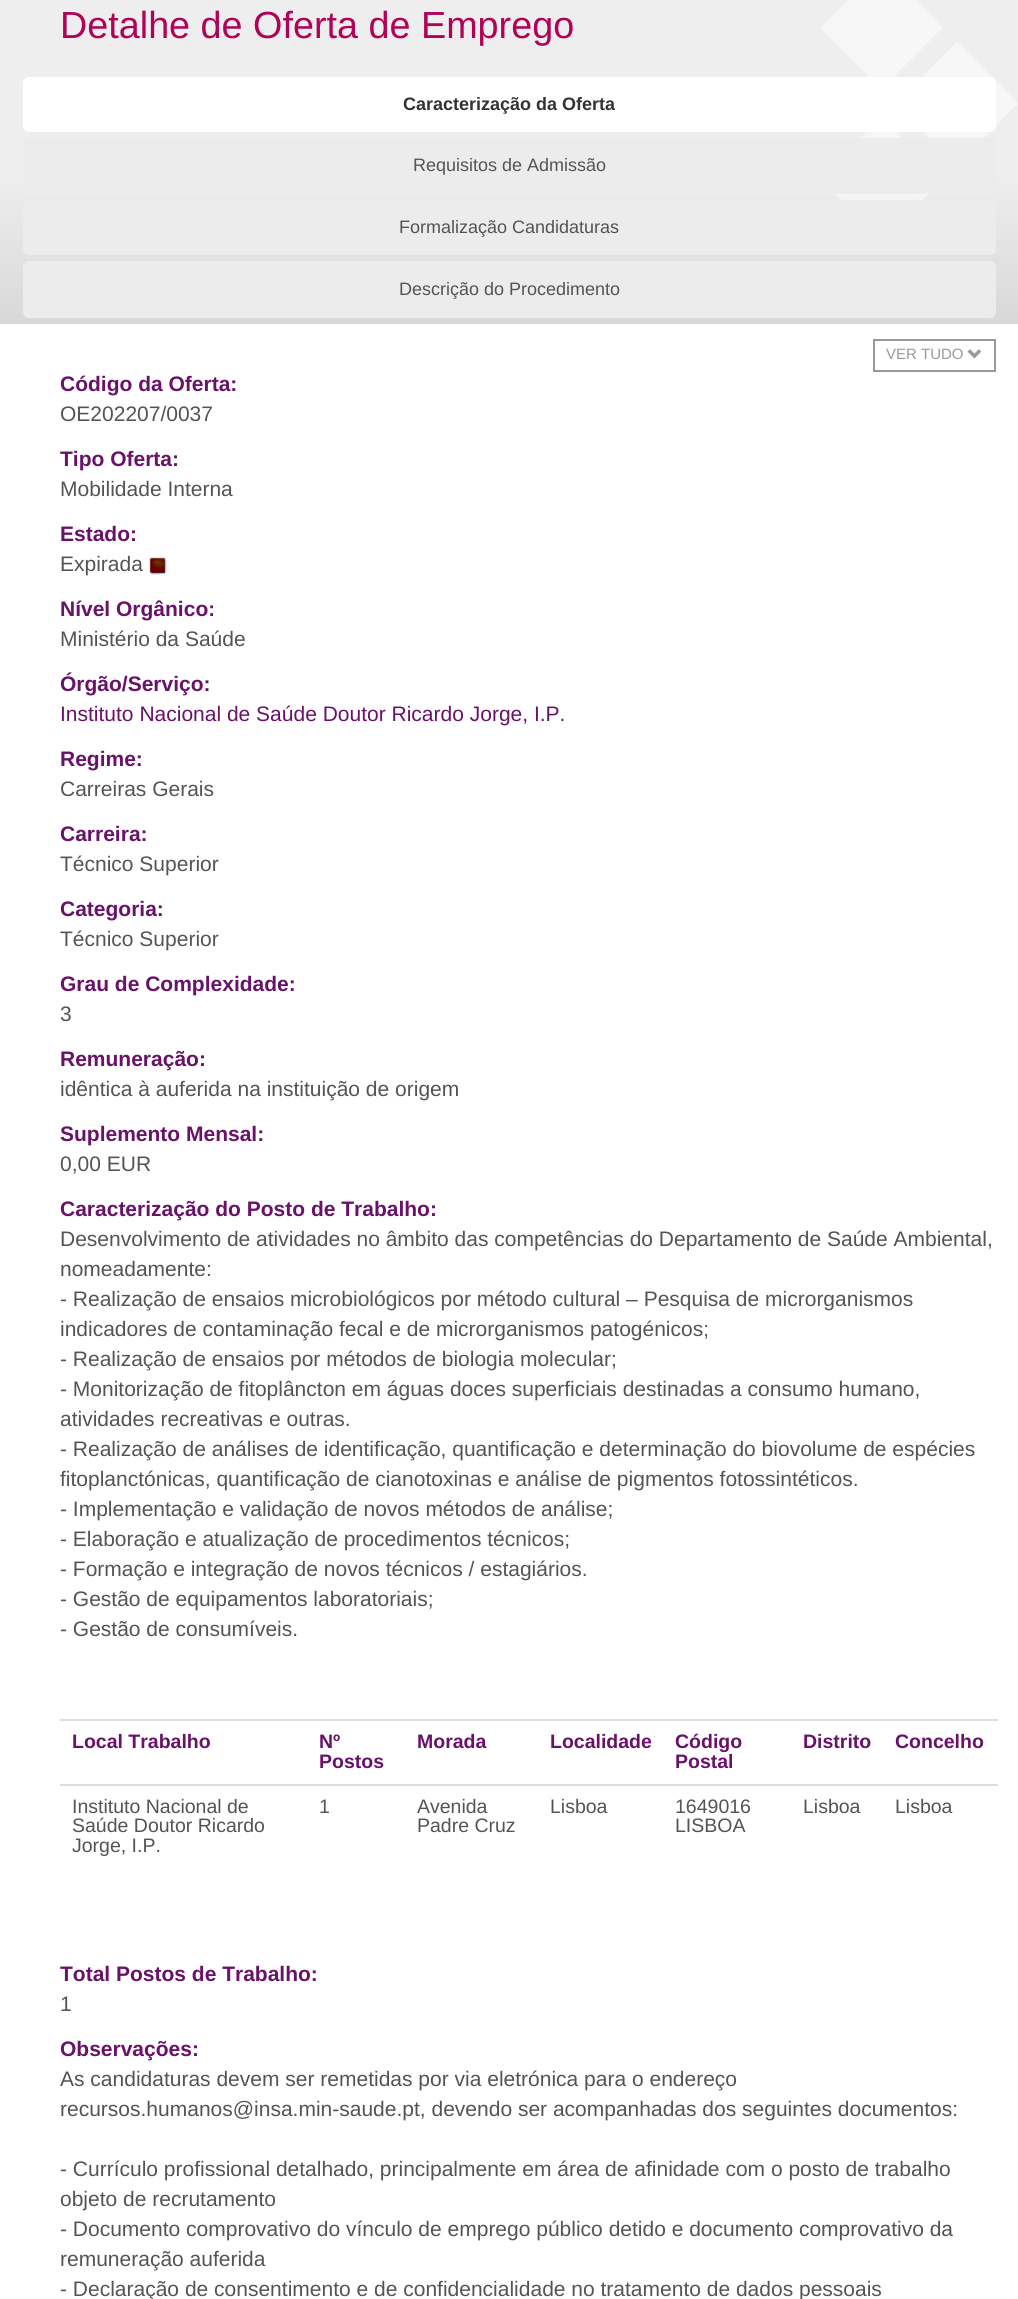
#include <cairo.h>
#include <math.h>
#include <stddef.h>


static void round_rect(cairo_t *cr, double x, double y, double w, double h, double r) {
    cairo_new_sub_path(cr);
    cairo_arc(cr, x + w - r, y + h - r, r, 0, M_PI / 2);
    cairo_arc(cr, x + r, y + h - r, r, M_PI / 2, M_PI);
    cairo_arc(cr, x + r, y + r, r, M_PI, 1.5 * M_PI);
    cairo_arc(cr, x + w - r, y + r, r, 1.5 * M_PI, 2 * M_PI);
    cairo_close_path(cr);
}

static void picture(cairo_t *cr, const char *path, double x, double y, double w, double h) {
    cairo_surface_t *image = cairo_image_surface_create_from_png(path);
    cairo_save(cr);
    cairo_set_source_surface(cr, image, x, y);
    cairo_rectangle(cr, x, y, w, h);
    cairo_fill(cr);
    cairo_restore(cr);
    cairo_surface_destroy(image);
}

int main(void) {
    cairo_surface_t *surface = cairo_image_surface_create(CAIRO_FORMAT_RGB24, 1018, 2299);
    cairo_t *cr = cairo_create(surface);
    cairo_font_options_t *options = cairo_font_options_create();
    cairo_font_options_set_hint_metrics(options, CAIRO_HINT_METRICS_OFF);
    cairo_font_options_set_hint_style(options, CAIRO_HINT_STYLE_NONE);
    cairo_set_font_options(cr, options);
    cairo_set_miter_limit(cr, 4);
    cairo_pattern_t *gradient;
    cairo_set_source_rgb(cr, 1, 1, 1);
    cairo_paint(cr);
    gradient = cairo_pattern_create_linear(509, -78, 509, 324);
    cairo_pattern_add_color_stop_rgba(gradient, 0.63, 0.933, 0.933, 0.933, 1);
    cairo_pattern_add_color_stop_rgba(gradient, 1, 0.847, 0.847, 0.847, 1);
    cairo_set_source(cr, gradient);
    cairo_pattern_destroy(gradient);
    cairo_rectangle(cr, 0, 0, 1018, 324);
    cairo_fill(cr);
    cairo_select_font_face(cr, "Liberation Sans", CAIRO_FONT_SLANT_NORMAL, CAIRO_FONT_WEIGHT_NORMAL);
    cairo_set_font_size(cr, 37.75);
    cairo_set_source_rgb(cr, 0.69, 0.008, 0.341);
    cairo_move_to(cr, 60, 38);
    cairo_show_text(cr, "Detalhe de Oferta de Emprego");
    picture(cr, "img1.png", 821, 0, 197, 200);
    cairo_set_source_rgb(cr, 1, 1, 1);
    round_rect(cr, 23, 77, 973, 55, 6);
    cairo_fill(cr);
    cairo_select_font_face(cr, "Liberation Sans", CAIRO_FONT_SLANT_NORMAL, CAIRO_FONT_WEIGHT_BOLD);
    cairo_set_font_size(cr, 18);
    cairo_set_source_rgb(cr, 0.2, 0.2, 0.2);
    cairo_move_to(cr, 403, 110);
    cairo_show_text(cr, "Caracterização da Oferta");
    cairo_set_source_rgb(cr, 0.922, 0.922, 0.922);
    round_rect(cr, 23, 138, 973, 56, 6);
    cairo_fill(cr);
    cairo_select_font_face(cr, "Liberation Sans", CAIRO_FONT_SLANT_NORMAL, CAIRO_FONT_WEIGHT_NORMAL);
    cairo_set_source_rgb(cr, 0.329, 0.329, 0.329);
    cairo_move_to(cr, 413, 171);
    cairo_show_text(cr, "Requisitos de Admissão");
    cairo_set_source_rgb(cr, 0.922, 0.922, 0.922);
    round_rect(cr, 23, 200, 973, 55, 6);
    cairo_fill(cr);
    cairo_set_source_rgb(cr, 0.329, 0.329, 0.329);
    cairo_move_to(cr, 399, 233);
    cairo_show_text(cr, "Formalização Candidaturas");
    cairo_set_source_rgb(cr, 0.922, 0.922, 0.922);
    round_rect(cr, 23, 261, 973, 57, 6);
    cairo_fill(cr);
    cairo_set_source_rgb(cr, 0.329, 0.329, 0.329);
    cairo_move_to(cr, 399, 295);
    cairo_show_text(cr, "Descrição do Procedimento");
    cairo_rectangle(cr, 874, 340, 121, 31);
    cairo_set_source_rgb(cr, 0.6, 0.6, 0.6);
    cairo_stroke(cr);
    cairo_set_font_size(cr, 15);
    cairo_move_to(cr, 886, 359);
    cairo_show_text(cr, "VER TUDO");
    picture(cr, "img2.png", 967, 349, 15, 10);
    cairo_select_font_face(cr, "Liberation Sans", CAIRO_FONT_SLANT_NORMAL, CAIRO_FONT_WEIGHT_BOLD);
    cairo_set_font_size(cr, 21);
    cairo_set_source_rgb(cr, 0.416, 0.071, 0.416);
    cairo_move_to(cr, 60, 391);
    cairo_show_text(cr, "Código da Oferta:");
    cairo_select_font_face(cr, "Liberation Sans", CAIRO_FONT_SLANT_NORMAL, CAIRO_FONT_WEIGHT_NORMAL);
    cairo_set_source_rgb(cr, 0.329, 0.329, 0.329);
    cairo_move_to(cr, 60, 421);
    cairo_show_text(cr, "OE202207/0037");
    cairo_select_font_face(cr, "Liberation Sans", CAIRO_FONT_SLANT_NORMAL, CAIRO_FONT_WEIGHT_BOLD);
    cairo_set_source_rgb(cr, 0.416, 0.071, 0.416);
    cairo_move_to(cr, 60, 466);
    cairo_show_text(cr, "Tipo Oferta:");
    cairo_select_font_face(cr, "Liberation Sans", CAIRO_FONT_SLANT_NORMAL, CAIRO_FONT_WEIGHT_NORMAL);
    cairo_set_source_rgb(cr, 0.329, 0.329, 0.329);
    cairo_move_to(cr, 60, 496);
    cairo_show_text(cr, "Mobilidade Interna");
    cairo_select_font_face(cr, "Liberation Sans", CAIRO_FONT_SLANT_NORMAL, CAIRO_FONT_WEIGHT_BOLD);
    cairo_set_source_rgb(cr, 0.416, 0.071, 0.416);
    cairo_move_to(cr, 60, 541);
    cairo_show_text(cr, "Estado:");
    cairo_select_font_face(cr, "Liberation Sans", CAIRO_FONT_SLANT_NORMAL, CAIRO_FONT_WEIGHT_NORMAL);
    cairo_set_source_rgb(cr, 0.329, 0.329, 0.329);
    cairo_move_to(cr, 60, 571);
    cairo_show_text(cr, "Expirada");
    picture(cr, "img3.png", 149, 557, 18, 18);
    cairo_select_font_face(cr, "Liberation Sans", CAIRO_FONT_SLANT_NORMAL, CAIRO_FONT_WEIGHT_BOLD);
    cairo_set_source_rgb(cr, 0.416, 0.071, 0.416);
    cairo_move_to(cr, 60, 616);
    cairo_show_text(cr, "Nível Orgânico:");
    cairo_select_font_face(cr, "Liberation Sans", CAIRO_FONT_SLANT_NORMAL, CAIRO_FONT_WEIGHT_NORMAL);
    cairo_set_source_rgb(cr, 0.329, 0.329, 0.329);
    cairo_move_to(cr, 60, 646);
    cairo_show_text(cr, "Ministério da Saúde");
    cairo_select_font_face(cr, "Liberation Sans", CAIRO_FONT_SLANT_NORMAL, CAIRO_FONT_WEIGHT_BOLD);
    cairo_set_source_rgb(cr, 0.416, 0.071, 0.416);
    cairo_move_to(cr, 60, 691);
    cairo_show_text(cr, "Órgão/Serviço:");
    cairo_select_font_face(cr, "Liberation Sans", CAIRO_FONT_SLANT_NORMAL, CAIRO_FONT_WEIGHT_NORMAL);
    cairo_move_to(cr, 60, 721);
    cairo_show_text(cr, "Instituto Nacional de Saúde Doutor Ricardo Jorge, I.P.");
    cairo_select_font_face(cr, "Liberation Sans", CAIRO_FONT_SLANT_NORMAL, CAIRO_FONT_WEIGHT_BOLD);
    cairo_move_to(cr, 60, 766);
    cairo_show_text(cr, "Regime:");
    cairo_select_font_face(cr, "Liberation Sans", CAIRO_FONT_SLANT_NORMAL, CAIRO_FONT_WEIGHT_NORMAL);
    cairo_set_source_rgb(cr, 0.329, 0.329, 0.329);
    cairo_move_to(cr, 60, 796);
    cairo_show_text(cr, "Carreiras Gerais");
    cairo_select_font_face(cr, "Liberation Sans", CAIRO_FONT_SLANT_NORMAL, CAIRO_FONT_WEIGHT_BOLD);
    cairo_set_source_rgb(cr, 0.416, 0.071, 0.416);
    cairo_move_to(cr, 60, 841);
    cairo_show_text(cr, "Carreira:");
    cairo_select_font_face(cr, "Liberation Sans", CAIRO_FONT_SLANT_NORMAL, CAIRO_FONT_WEIGHT_NORMAL);
    cairo_set_source_rgb(cr, 0.329, 0.329, 0.329);
    cairo_move_to(cr, 60, 871);
    cairo_show_text(cr, "Técnico Superior");
    cairo_select_font_face(cr, "Liberation Sans", CAIRO_FONT_SLANT_NORMAL, CAIRO_FONT_WEIGHT_BOLD);
    cairo_set_source_rgb(cr, 0.416, 0.071, 0.416);
    cairo_move_to(cr, 60, 916);
    cairo_show_text(cr, "Categoria:");
    cairo_select_font_face(cr, "Liberation Sans", CAIRO_FONT_SLANT_NORMAL, CAIRO_FONT_WEIGHT_NORMAL);
    cairo_set_source_rgb(cr, 0.329, 0.329, 0.329);
    cairo_move_to(cr, 60, 946);
    cairo_show_text(cr, "Técnico Superior");
    cairo_select_font_face(cr, "Liberation Sans", CAIRO_FONT_SLANT_NORMAL, CAIRO_FONT_WEIGHT_BOLD);
    cairo_set_source_rgb(cr, 0.416, 0.071, 0.416);
    cairo_move_to(cr, 60, 991);
    cairo_show_text(cr, "Grau de Complexidade:");
    cairo_select_font_face(cr, "Liberation Sans", CAIRO_FONT_SLANT_NORMAL, CAIRO_FONT_WEIGHT_NORMAL);
    cairo_set_source_rgb(cr, 0.329, 0.329, 0.329);
    cairo_move_to(cr, 60, 1021);
    cairo_show_text(cr, "3");
    cairo_select_font_face(cr, "Liberation Sans", CAIRO_FONT_SLANT_NORMAL, CAIRO_FONT_WEIGHT_BOLD);
    cairo_set_source_rgb(cr, 0.416, 0.071, 0.416);
    cairo_move_to(cr, 60, 1066);
    cairo_show_text(cr, "Remuneração:");
    cairo_select_font_face(cr, "Liberation Sans", CAIRO_FONT_SLANT_NORMAL, CAIRO_FONT_WEIGHT_NORMAL);
    cairo_set_source_rgb(cr, 0.329, 0.329, 0.329);
    cairo_move_to(cr, 60, 1096);
    cairo_show_text(cr, "idêntica à auferida na instituição de origem");
    cairo_select_font_face(cr, "Liberation Sans", CAIRO_FONT_SLANT_NORMAL, CAIRO_FONT_WEIGHT_BOLD);
    cairo_set_source_rgb(cr, 0.416, 0.071, 0.416);
    cairo_move_to(cr, 60, 1141);
    cairo_show_text(cr, "Suplemento Mensal:");
    cairo_select_font_face(cr, "Liberation Sans", CAIRO_FONT_SLANT_NORMAL, CAIRO_FONT_WEIGHT_NORMAL);
    cairo_set_source_rgb(cr, 0.329, 0.329, 0.329);
    cairo_move_to(cr, 60, 1171);
    cairo_show_text(cr, "0,00 EUR");
    cairo_select_font_face(cr, "Liberation Sans", CAIRO_FONT_SLANT_NORMAL, CAIRO_FONT_WEIGHT_BOLD);
    cairo_set_source_rgb(cr, 0.416, 0.071, 0.416);
    cairo_move_to(cr, 60, 1216);
    cairo_show_text(cr, "Caracterização do Posto de Trabalho:");
    cairo_select_font_face(cr, "Liberation Sans", CAIRO_FONT_SLANT_NORMAL, CAIRO_FONT_WEIGHT_NORMAL);
    cairo_set_source_rgb(cr, 0.329, 0.329, 0.329);
    cairo_move_to(cr, 60, 1246);
    cairo_show_text(cr, "Desenvolvimento de atividades no âmbito das competências do Departamento de Saúde Ambiental,");
    cairo_move_to(cr, 60, 1276);
    cairo_show_text(cr, "nomeadamente:");
    cairo_move_to(cr, 60, 1306);
    cairo_show_text(cr, "- Realização de ensaios microbiológicos por método cultural – Pesquisa de microrganismos");
    cairo_move_to(cr, 60, 1336);
    cairo_show_text(cr, "indicadores de contaminação fecal e de microrganismos patogénicos;");
    cairo_move_to(cr, 60, 1366);
    cairo_show_text(cr, "- Realização de ensaios por métodos de biologia molecular;");
    cairo_move_to(cr, 60, 1396);
    cairo_show_text(cr, "- Monitorização de fitoplâncton em águas doces superficiais destinadas a consumo humano,");
    cairo_move_to(cr, 60, 1426);
    cairo_show_text(cr, "atividades recreativas e outras.");
    cairo_move_to(cr, 60, 1456);
    cairo_show_text(cr, "- Realização de análises de identificação, quantificação e determinação do biovolume de espécies");
    cairo_move_to(cr, 60, 1486);
    cairo_show_text(cr, "fitoplanctónicas, quantificação de cianotoxinas e análise de pigmentos fotossintéticos.");
    cairo_move_to(cr, 60, 1516);
    cairo_show_text(cr, "- Implementação e validação de novos métodos de análise;");
    cairo_move_to(cr, 60, 1546);
    cairo_show_text(cr, "- Elaboração e atualização de procedimentos técnicos;");
    cairo_move_to(cr, 60, 1576);
    cairo_show_text(cr, "- Formação e integração de novos técnicos / estagiários.");
    cairo_move_to(cr, 60, 1606);
    cairo_show_text(cr, "- Gestão de equipamentos laboratoriais;");
    cairo_move_to(cr, 60, 1636);
    cairo_show_text(cr, "- Gestão de consumíveis.");
    cairo_select_font_face(cr, "Liberation Sans", CAIRO_FONT_SLANT_NORMAL, CAIRO_FONT_WEIGHT_BOLD);
    cairo_set_font_size(cr, 19.5);
    cairo_set_source_rgb(cr, 0.416, 0.071, 0.416);
    cairo_move_to(cr, 72, 1748);
    cairo_show_text(cr, "Local Trabalho");
    cairo_move_to(cr, 319, 1748);
    cairo_show_text(cr, "Nº");
    cairo_move_to(cr, 319, 1768);
    cairo_show_text(cr, "Postos");
    cairo_move_to(cr, 417, 1748);
    cairo_show_text(cr, "Morada");
    cairo_move_to(cr, 550, 1748);
    cairo_show_text(cr, "Localidade");
    cairo_move_to(cr, 675, 1748);
    cairo_show_text(cr, "Código");
    cairo_move_to(cr, 675, 1768);
    cairo_show_text(cr, "Postal");
    cairo_move_to(cr, 803, 1748);
    cairo_show_text(cr, "Distrito");
    cairo_set_source_rgb(cr, 0.867, 0.867, 0.867);
    cairo_rectangle(cr, 60, 1719, 938, 2);
    cairo_fill(cr);
    cairo_set_source_rgb(cr, 0.416, 0.071, 0.416);
    cairo_move_to(cr, 895, 1748);
    cairo_show_text(cr, "Concelho");
    cairo_select_font_face(cr, "Liberation Sans", CAIRO_FONT_SLANT_NORMAL, CAIRO_FONT_WEIGHT_NORMAL);
    cairo_set_source_rgb(cr, 0.329, 0.329, 0.329);
    cairo_move_to(cr, 72, 1813);
    cairo_show_text(cr, "Instituto Nacional de");
    cairo_move_to(cr, 72, 1832);
    cairo_show_text(cr, "Saúde Doutor Ricardo");
    cairo_move_to(cr, 72, 1852);
    cairo_show_text(cr, "Jorge, I.P.");
    cairo_move_to(cr, 319, 1813);
    cairo_show_text(cr, "1");
    cairo_move_to(cr, 417, 1813);
    cairo_show_text(cr, "Avenida");
    cairo_move_to(cr, 417, 1832);
    cairo_show_text(cr, "Padre Cruz");
    cairo_move_to(cr, 550, 1813);
    cairo_show_text(cr, "Lisboa");
    cairo_move_to(cr, 675, 1813);
    cairo_show_text(cr, "1649016");
    cairo_move_to(cr, 675, 1832);
    cairo_show_text(cr, "LISBOA");
    cairo_move_to(cr, 803, 1813);
    cairo_show_text(cr, "Lisboa");
    cairo_set_source_rgb(cr, 0.867, 0.867, 0.867);
    cairo_rectangle(cr, 60, 1784, 938, 2);
    cairo_fill(cr);
    cairo_set_source_rgb(cr, 0.329, 0.329, 0.329);
    cairo_move_to(cr, 895, 1813);
    cairo_show_text(cr, "Lisboa");
    cairo_select_font_face(cr, "Liberation Sans", CAIRO_FONT_SLANT_NORMAL, CAIRO_FONT_WEIGHT_BOLD);
    cairo_set_font_size(cr, 21);
    cairo_set_source_rgb(cr, 0.416, 0.071, 0.416);
    cairo_move_to(cr, 60, 1981);
    cairo_show_text(cr, "Total Postos de Trabalho:");
    cairo_select_font_face(cr, "Liberation Sans", CAIRO_FONT_SLANT_NORMAL, CAIRO_FONT_WEIGHT_NORMAL);
    cairo_set_source_rgb(cr, 0.329, 0.329, 0.329);
    cairo_move_to(cr, 60, 2011);
    cairo_show_text(cr, "1");
    cairo_select_font_face(cr, "Liberation Sans", CAIRO_FONT_SLANT_NORMAL, CAIRO_FONT_WEIGHT_BOLD);
    cairo_set_source_rgb(cr, 0.416, 0.071, 0.416);
    cairo_move_to(cr, 60, 2056);
    cairo_show_text(cr, "Observações:");
    cairo_select_font_face(cr, "Liberation Sans", CAIRO_FONT_SLANT_NORMAL, CAIRO_FONT_WEIGHT_NORMAL);
    cairo_set_source_rgb(cr, 0.329, 0.329, 0.329);
    cairo_move_to(cr, 60, 2086);
    cairo_show_text(cr, "As candidaturas devem ser remetidas por via eletrónica para o endereço");
    cairo_move_to(cr, 60, 2116);
    cairo_show_text(cr, "recursos.humanos@insa.min-saude.pt, devendo ser acompanhadas dos seguintes documentos:");
    cairo_move_to(cr, 60, 2176);
    cairo_show_text(cr, "- Currículo profissional detalhado, principalmente em área de afinidade com o posto de trabalho");
    cairo_move_to(cr, 60, 2206);
    cairo_show_text(cr, "objeto de recrutamento");
    cairo_move_to(cr, 60, 2236);
    cairo_show_text(cr, "- Documento comprovativo do vínculo de emprego público detido e documento comprovativo da");
    cairo_move_to(cr, 60, 2266);
    cairo_show_text(cr, "remuneração auferida");
    cairo_move_to(cr, 60, 2296);
    cairo_show_text(cr, "- Declaração de consentimento e de confidencialidade no tratamento de dados pessoais");
    cairo_surface_write_to_png(surface, "page.png");
    cairo_font_options_destroy(options);
    cairo_destroy(cr);
    cairo_surface_destroy(surface);
    return 0;
}
